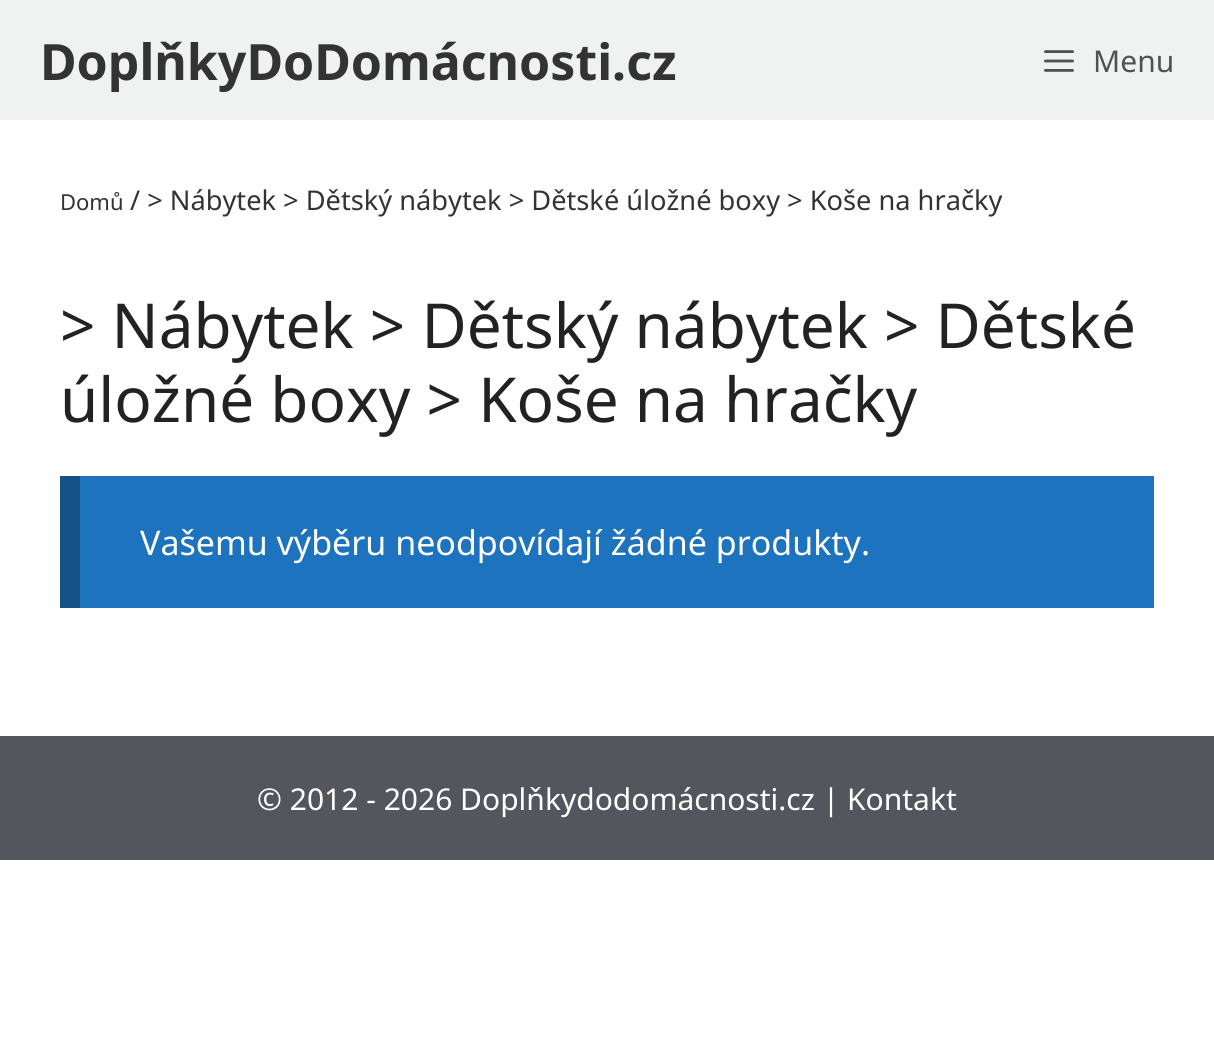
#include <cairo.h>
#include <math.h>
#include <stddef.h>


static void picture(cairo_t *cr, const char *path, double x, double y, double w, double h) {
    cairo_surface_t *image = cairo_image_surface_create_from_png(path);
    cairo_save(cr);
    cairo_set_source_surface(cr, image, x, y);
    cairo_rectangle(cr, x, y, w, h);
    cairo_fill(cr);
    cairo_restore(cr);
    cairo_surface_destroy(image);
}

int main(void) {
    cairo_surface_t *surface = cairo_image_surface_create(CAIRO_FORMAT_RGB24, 1214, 1045);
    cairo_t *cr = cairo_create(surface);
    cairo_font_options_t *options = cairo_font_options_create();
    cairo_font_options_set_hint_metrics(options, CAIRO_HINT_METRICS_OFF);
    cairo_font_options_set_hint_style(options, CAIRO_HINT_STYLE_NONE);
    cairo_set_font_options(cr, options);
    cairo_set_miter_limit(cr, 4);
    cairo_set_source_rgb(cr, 1, 1, 1);
    cairo_paint(cr);
    cairo_set_source_rgb(cr, 0.937, 0.949, 0.941);
    cairo_rectangle(cr, 0, 0, 1214, 120);
    cairo_fill(cr);
    cairo_select_font_face(cr, "Noto Sans", CAIRO_FONT_SLANT_NORMAL, CAIRO_FONT_WEIGHT_BOLD);
    cairo_set_font_size(cr, 50);
    cairo_set_source_rgb(cr, 0.2, 0.2, 0.2);
    cairo_move_to(cr, 40, 80);
    cairo_show_text(cr, "DoplňkyDoDomácnosti.cz");
    picture(cr, "img1.png", 1044, 50, 30, 22);
    cairo_select_font_face(cr, "Noto Sans", CAIRO_FONT_SLANT_NORMAL, CAIRO_FONT_WEIGHT_NORMAL);
    cairo_set_font_size(cr, 30);
    cairo_set_source_rgb(cr, 0.318, 0.318, 0.318);
    cairo_move_to(cr, 1093, 72);
    cairo_show_text(cr, "Menu");
    cairo_set_font_size(cr, 22);
    cairo_set_source_rgb(cr, 0.2, 0.2, 0.2);
    cairo_move_to(cr, 60, 210);
    cairo_show_text(cr, "Domů");
    cairo_set_font_size(cr, 27.2);
    cairo_move_to(cr, 130, 210);
    cairo_show_text(cr, "/ > Nábytek > Dětský nábytek > Dětské úložné boxy > Koše na hračky");
    cairo_set_font_size(cr, 62);
    cairo_set_source_rgb(cr, 0.133, 0.133, 0.133);
    cairo_move_to(cr, 60, 348);
    cairo_show_text(cr, "> Nábytek > Dětský nábytek > Dětské");
    cairo_move_to(cr, 60, 422);
    cairo_show_text(cr, "úložné boxy > Koše na hračky");
    cairo_set_source_rgb(cr, 0.118, 0.451, 0.745);
    cairo_rectangle(cr, 80, 476, 1074, 132);
    cairo_fill(cr);
    cairo_set_source_rgb(cr, 0.082, 0.318, 0.522);
    cairo_rectangle(cr, 60, 476, 20, 132);
    cairo_fill(cr);
    cairo_set_font_size(cr, 34);
    cairo_set_source_rgb(cr, 1, 1, 1);
    cairo_move_to(cr, 140, 555);
    cairo_show_text(cr, "Vašemu výběru neodpovídají žádné produkty.");
    cairo_set_source_rgb(cr, 0.333, 0.333, 0.369);
    cairo_rectangle(cr, 0, 736, 1214, 124);
    cairo_fill(cr);
    cairo_set_font_size(cr, 30);
    cairo_set_source_rgb(cr, 1, 1, 1);
    cairo_move_to(cr, 257, 810);
    cairo_show_text(cr, "© 2012 - 2026 Doplňkydodomácnosti.cz | Kontakt");
    cairo_surface_write_to_png(surface, "page.png");
    cairo_font_options_destroy(options);
    cairo_destroy(cr);
    cairo_surface_destroy(surface);
    return 0;
}
